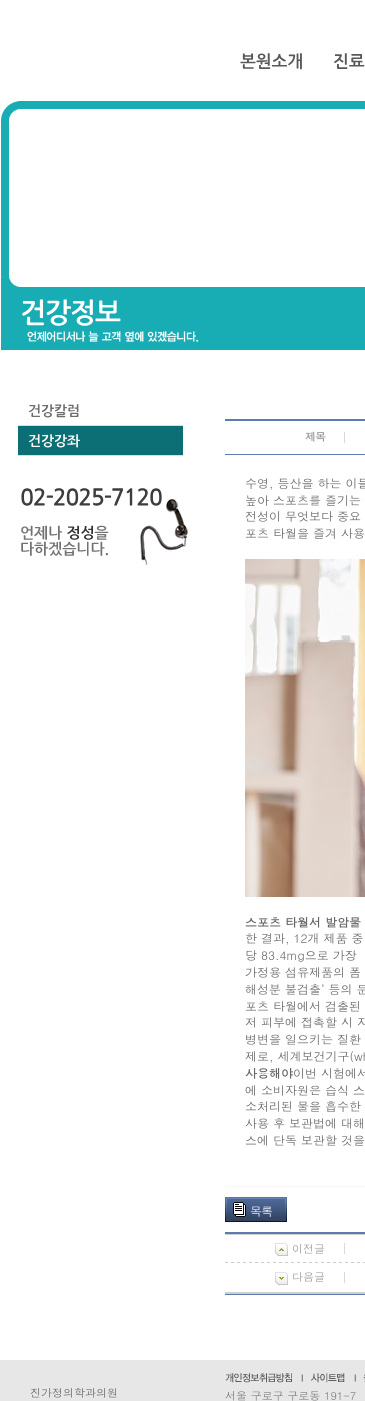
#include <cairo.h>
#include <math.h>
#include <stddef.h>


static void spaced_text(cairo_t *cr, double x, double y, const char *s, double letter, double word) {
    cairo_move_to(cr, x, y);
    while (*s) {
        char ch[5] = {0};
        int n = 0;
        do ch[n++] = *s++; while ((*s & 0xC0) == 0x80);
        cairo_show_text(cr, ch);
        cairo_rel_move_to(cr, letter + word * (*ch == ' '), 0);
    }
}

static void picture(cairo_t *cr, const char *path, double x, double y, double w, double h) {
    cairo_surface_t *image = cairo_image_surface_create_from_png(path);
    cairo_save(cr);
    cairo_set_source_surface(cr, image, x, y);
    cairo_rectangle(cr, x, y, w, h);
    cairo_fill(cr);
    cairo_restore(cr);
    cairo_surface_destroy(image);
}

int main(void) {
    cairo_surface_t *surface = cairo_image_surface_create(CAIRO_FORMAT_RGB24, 365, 1401);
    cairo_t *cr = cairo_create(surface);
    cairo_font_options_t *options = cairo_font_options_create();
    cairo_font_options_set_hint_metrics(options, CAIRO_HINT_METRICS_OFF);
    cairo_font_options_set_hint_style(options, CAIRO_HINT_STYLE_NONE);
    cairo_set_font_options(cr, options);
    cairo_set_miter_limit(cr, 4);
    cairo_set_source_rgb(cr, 1, 1, 1);
    cairo_paint(cr);
    picture(cr, "img1.png", 240, 53, 62, 17);
    picture(cr, "img2.png", 334, 53, 31, 16);
    picture(cr, "img3.png", 1, 101, 364, 249);
    picture(cr, "img4.png", 22, 299, 99, 27);
    cairo_set_source_rgb(cr, 0.867, 0.867, 0.867);
    cairo_rectangle(cr, 18, 425, 165, 1);
    cairo_fill(cr);
    picture(cr, "img5.png", 29, 404, 50, 14);
    cairo_rectangle(cr, 18, 455, 165, 1);
    cairo_fill(cr);
    cairo_set_source_rgb(cr, 0.047, 0.435, 0.459);
    cairo_rectangle(cr, 18, 426, 165, 29);
    cairo_fill(cr);
    picture(cr, "img6.png", 29, 434, 51, 14);
    picture(cr, "img7.png", 21, 499, 167, 66);
    picture(cr, "img8.png", 21, 488, 141, 18);
    cairo_set_source_rgb(cr, 0.369, 0.482, 0.694);
    cairo_rectangle(cr, 225, 419, 140, 2);
    cairo_fill(cr);
    cairo_rectangle(cr, 225, 454, 140, 1);
    cairo_fill(cr);
    cairo_set_source_rgb(cr, 0.851, 0.851, 0.851);
    cairo_rectangle(cr, 344, 432, 1, 11);
    cairo_fill(cr);
    cairo_select_font_face(cr, "Dotum", CAIRO_FONT_SLANT_NORMAL, CAIRO_FONT_WEIGHT_BOLD);
    cairo_set_font_size(cr, 11);
    cairo_set_source_rgb(cr, 0.596, 0.596, 0.596);
    spaced_text(cr, 305, 441, "제목", -1, 0);
    cairo_set_source_rgb(cr, 0.969, 0.969, 0.969);
    cairo_rectangle(cr, 225, 1186, 140, 1);
    cairo_fill(cr);
    cairo_select_font_face(cr, "Dotum", CAIRO_FONT_SLANT_NORMAL, CAIRO_FONT_WEIGHT_NORMAL);
    cairo_set_font_size(cr, 12);
    cairo_set_source_rgb(cr, 0.4, 0.4, 0.4);
    cairo_move_to(cr, 245, 488);
    cairo_show_text(cr, "수영, 등산을 하는 이들");
    cairo_move_to(cr, 245, 505);
    cairo_show_text(cr, "높아 스포츠를 즐기는");
    cairo_move_to(cr, 245, 521);
    cairo_show_text(cr, "전성이 무엇보다 중요");
    cairo_move_to(cr, 245, 538);
    cairo_show_text(cr, "포츠 타월을 즐겨 사용");
    picture(cr, "img9.png", 245, 559, 120, 338);
    cairo_select_font_face(cr, "Dotum", CAIRO_FONT_SLANT_NORMAL, CAIRO_FONT_WEIGHT_BOLD);
    cairo_move_to(cr, 245, 927);
    cairo_show_text(cr, "스포츠 타월서 발암물");
    cairo_select_font_face(cr, "Dotum", CAIRO_FONT_SLANT_NORMAL, CAIRO_FONT_WEIGHT_NORMAL);
    cairo_move_to(cr, 245, 943);
    cairo_show_text(cr, "한 결과, 12개 제품 중");
    cairo_move_to(cr, 245, 960);
    cairo_show_text(cr, "당 83.4mg으로 가장");
    cairo_move_to(cr, 245, 977);
    cairo_show_text(cr, "가정용 섬유제품의 폼");
    cairo_move_to(cr, 245, 994);
    cairo_show_text(cr, "해성분 불검출’ 등의 문");
    cairo_move_to(cr, 245, 1011);
    cairo_show_text(cr, "포츠 타월에서 검출된");
    cairo_move_to(cr, 245, 1027);
    cairo_show_text(cr, "저 피부에 접촉할 시 자");
    cairo_move_to(cr, 245, 1044);
    cairo_show_text(cr, "병변을 일으키는 질환");
    cairo_move_to(cr, 245, 1061);
    cairo_show_text(cr, "제로, 세계보건기구(wh");
    cairo_select_font_face(cr, "Dotum", CAIRO_FONT_SLANT_NORMAL, CAIRO_FONT_WEIGHT_BOLD);
    cairo_move_to(cr, 245, 1078);
    cairo_show_text(cr, "사용해야");
    cairo_select_font_face(cr, "Dotum", CAIRO_FONT_SLANT_NORMAL, CAIRO_FONT_WEIGHT_NORMAL);
    cairo_move_to(cr, 293, 1078);
    cairo_show_text(cr, "이번 시험에서");
    cairo_move_to(cr, 245, 1095);
    cairo_show_text(cr, "에 소비자원은 습식 스");
    cairo_move_to(cr, 245, 1111);
    cairo_show_text(cr, "소처리된 물을 흡수한");
    cairo_move_to(cr, 245, 1128);
    cairo_show_text(cr, "사용 후 보관법에 대해");
    cairo_move_to(cr, 245, 1145);
    cairo_show_text(cr, "스에 단독 보관할 것을");
    picture(cr, "img10.png", 225, 1197, 62, 25);
    cairo_set_source_rgb(cr, 1, 1, 1);
    spaced_text(cr, 250, 1216, "목록", -1, 0);
    cairo_set_source_rgb(cr, 0.369, 0.482, 0.694);
    cairo_rectangle(cr, 225, 1232, 140, 2);
    cairo_fill(cr);
    cairo_rectangle(cr, 225, 1294, 140, 1);
    cairo_fill(cr);
    picture(cr, "img11.png", 225, 1262, 140, 1);
    cairo_set_source_rgb(cr, 0.812, 0.812, 0.812);
    cairo_rectangle(cr, 225, 1234, 140, 1);
    cairo_fill(cr);
    cairo_set_source_rgb(cr, 0.851, 0.851, 0.851);
    cairo_rectangle(cr, 344, 1243, 1, 11);
    cairo_fill(cr);
    picture(cr, "img12.png", 275, 1243, 13, 13);
    cairo_set_font_size(cr, 11);
    cairo_set_source_rgb(cr, 0.596, 0.596, 0.596);
    cairo_move_to(cr, 292, 1253);
    cairo_show_text(cr, "이전글");
    cairo_set_source_rgb(cr, 0.812, 0.812, 0.812);
    cairo_rectangle(cr, 225, 1292, 140, 2);
    cairo_fill(cr);
    cairo_set_source_rgb(cr, 0.851, 0.851, 0.851);
    cairo_rectangle(cr, 344, 1272, 1, 11);
    cairo_fill(cr);
    picture(cr, "img13.png", 275, 1272, 13, 13);
    cairo_set_source_rgb(cr, 0.596, 0.596, 0.596);
    cairo_move_to(cr, 292, 1281);
    cairo_show_text(cr, "다음글");
    cairo_set_source_rgb(cr, 0.91, 0.906, 0.906);
    cairo_rectangle(cr, 0, 1360, 365, 41);
    cairo_fill(cr);
    cairo_set_source_rgb(cr, 0.4, 0.4, 0.4);
    cairo_move_to(cr, 30, 1397);
    cairo_show_text(cr, "진가정의학과의원");
    picture(cr, "img14.png", 225, 1373, 78, 10);
    picture(cr, "img15.png", 311, 1373, 45, 10);
    picture(cr, "img16.png", 363, 1374, 2, 8);
    cairo_set_source_rgb(cr, 0.486, 0.486, 0.486);
    cairo_move_to(cr, 225, 1400);
    cairo_show_text(cr, "서울 구로구 구로동 191-7");
    cairo_surface_write_to_png(surface, "page.png");
    cairo_font_options_destroy(options);
    cairo_destroy(cr);
    cairo_surface_destroy(surface);
    return 0;
}
